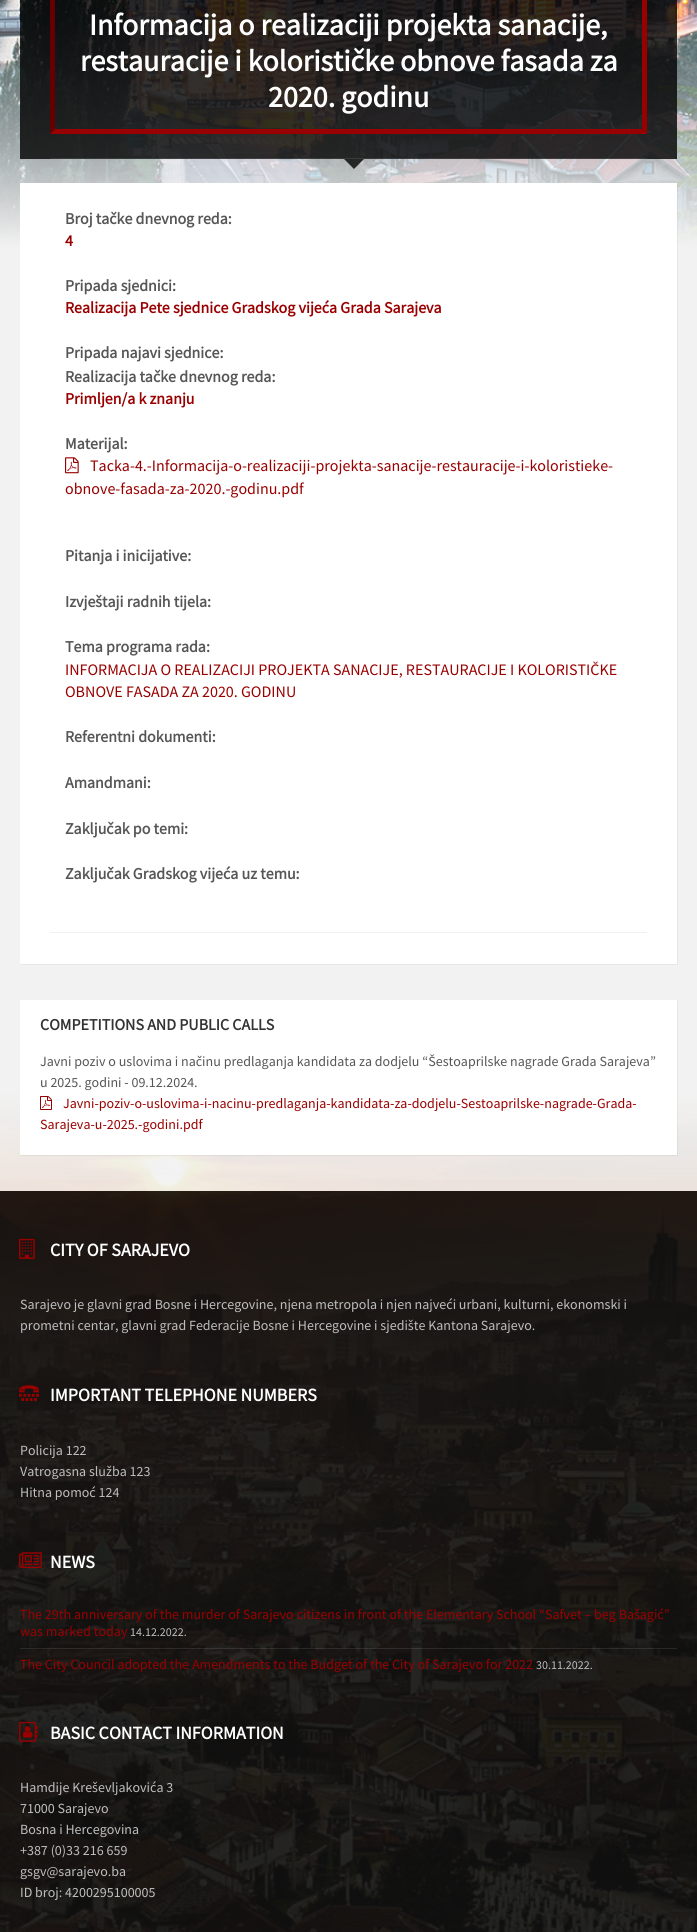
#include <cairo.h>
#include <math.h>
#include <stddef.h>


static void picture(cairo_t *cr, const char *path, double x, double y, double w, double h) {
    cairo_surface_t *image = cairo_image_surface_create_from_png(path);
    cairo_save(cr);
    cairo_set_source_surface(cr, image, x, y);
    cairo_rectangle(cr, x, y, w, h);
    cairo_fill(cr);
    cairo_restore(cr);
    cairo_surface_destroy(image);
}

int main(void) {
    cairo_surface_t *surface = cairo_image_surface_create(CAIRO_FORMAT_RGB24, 697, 1932);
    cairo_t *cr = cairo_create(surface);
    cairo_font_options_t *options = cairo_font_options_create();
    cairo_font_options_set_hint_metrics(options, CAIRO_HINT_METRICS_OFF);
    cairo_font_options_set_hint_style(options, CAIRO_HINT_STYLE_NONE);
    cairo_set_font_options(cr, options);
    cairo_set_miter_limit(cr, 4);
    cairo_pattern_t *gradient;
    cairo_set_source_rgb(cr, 0.949, 0.949, 0.949);
    cairo_paint(cr);
    picture(cr, "img1.png", 0, 0, 697, 247);
    cairo_set_source_rgba(cr, 0, 0, 0, 0.8);
    cairo_rectangle(cr, 20, 0, 657, 159);
    cairo_fill(cr);
    cairo_set_source_rgba(cr, 1, 1, 1, 0.1);
    cairo_rectangle(cr, 50, 158, 597, 1);
    cairo_fill(cr);
    cairo_set_source_rgb(cr, 0.6, 0, 0);
    cairo_new_path(cr);
    cairo_move_to(cr, 647, -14);
    cairo_line_to(cr, 647, 134);
    cairo_line_to(cr, 642, 129);
    cairo_line_to(cr, 642, -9);
    cairo_close_path(cr);
    cairo_fill(cr);
    cairo_new_path(cr);
    cairo_move_to(cr, 647, 134);
    cairo_line_to(cr, 50, 134);
    cairo_line_to(cr, 55, 129);
    cairo_line_to(cr, 642, 129);
    cairo_close_path(cr);
    cairo_fill(cr);
    cairo_set_source_rgb(cr, 0.4, 0, 0);
    cairo_new_path(cr);
    cairo_move_to(cr, 50, 134);
    cairo_line_to(cr, 50, -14);
    cairo_line_to(cr, 55, -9);
    cairo_line_to(cr, 55, 129);
    cairo_close_path(cr);
    cairo_fill(cr);
    cairo_select_font_face(cr, "Source Sans Pro", CAIRO_FONT_SLANT_NORMAL, CAIRO_FONT_WEIGHT_BOLD);
    cairo_set_font_size(cr, 30);
    cairo_set_source_rgb(cr, 1, 1, 1);
    cairo_move_to(cr, 89, 35);
    cairo_show_text(cr, "Informacija o realizaciji projekta sanacije,");
    cairo_move_to(cr, 80, 71);
    cairo_show_text(cr, "restauracije i kolorističke obnove fasada za");
    cairo_move_to(cr, 268, 107);
    cairo_show_text(cr, "2020. godinu");
    cairo_set_source_rgba(cr, 0, 0, 0, 0.8);
    cairo_new_path(cr);
    cairo_move_to(cr, 344, 159);
    cairo_line_to(cr, 364, 159);
    cairo_line_to(cr, 354, 169);
    cairo_close_path(cr);
    cairo_fill(cr);
    cairo_set_source_rgba(cr, 0, 0, 0, 0.05);
    cairo_new_path(cr);
    cairo_move_to(cr, 21, 964);
    cairo_line_to(cr, 21, 965);
    cairo_line_to(cr, 678, 965);
    cairo_line_to(cr, 678, 184);
    cairo_line_to(cr, 677, 184);
    cairo_line_to(cr, 677, 964);
    cairo_close_path(cr);
    cairo_fill(cr);
    cairo_set_source_rgb(cr, 1, 1, 1);
    cairo_rectangle(cr, 20, 183, 657, 781);
    cairo_fill(cr);
    cairo_set_font_size(cr, 16);
    cairo_set_source_rgb(cr, 0.337, 0.337, 0.337);
    cairo_move_to(cr, 65, 224);
    cairo_show_text(cr, "Broj tačke dnevnog reda:");
    cairo_set_source_rgb(cr, 0.6, 0, 0);
    cairo_move_to(cr, 65, 246);
    cairo_show_text(cr, "4");
    cairo_set_source_rgb(cr, 0.337, 0.337, 0.337);
    cairo_move_to(cr, 65, 291);
    cairo_show_text(cr, "Pripada sjednici:");
    cairo_set_source_rgb(cr, 0.6, 0, 0);
    cairo_move_to(cr, 65, 313);
    cairo_show_text(cr, "Realizacija Pete sjednice Gradskog vijeća Grada Sarajeva");
    cairo_set_source_rgb(cr, 0.337, 0.337, 0.337);
    cairo_move_to(cr, 65, 358);
    cairo_show_text(cr, "Pripada najavi sjednice:");
    cairo_move_to(cr, 65, 382);
    cairo_show_text(cr, "Realizacija tačke dnevnog reda:");
    cairo_set_source_rgb(cr, 0.6, 0, 0);
    cairo_move_to(cr, 65, 404);
    cairo_show_text(cr, "Primljen/a k znanju");
    cairo_set_source_rgb(cr, 0.337, 0.337, 0.337);
    cairo_move_to(cr, 65, 449);
    cairo_show_text(cr, "Materijal:");
    picture(cr, "img2.png", 65, 457, 14, 17);
    cairo_select_font_face(cr, "Source Sans Pro", CAIRO_FONT_SLANT_NORMAL, CAIRO_FONT_WEIGHT_NORMAL);
    cairo_set_source_rgb(cr, 0.6, 0, 0);
    cairo_move_to(cr, 90, 471);
    cairo_show_text(cr, "Tacka-4.-Informacija-o-realizaciji-projekta-sanacije-restauracije-i-koloristieke-");
    cairo_move_to(cr, 65, 494);
    cairo_show_text(cr, "obnove-fasada-za-2020.-godinu.pdf");
    cairo_select_font_face(cr, "Source Sans Pro", CAIRO_FONT_SLANT_NORMAL, CAIRO_FONT_WEIGHT_BOLD);
    cairo_set_source_rgb(cr, 0.337, 0.337, 0.337);
    cairo_move_to(cr, 65, 561);
    cairo_show_text(cr, "Pitanja i inicijative:");
    cairo_move_to(cr, 65, 607);
    cairo_show_text(cr, "Izvještaji radnih tijela:");
    cairo_move_to(cr, 65, 652);
    cairo_show_text(cr, "Tema programa rada:");
    cairo_select_font_face(cr, "Source Sans Pro", CAIRO_FONT_SLANT_NORMAL, CAIRO_FONT_WEIGHT_NORMAL);
    cairo_set_source_rgb(cr, 0.6, 0, 0);
    cairo_move_to(cr, 65, 675);
    cairo_show_text(cr, "INFORMACIJA O REALIZACIJI PROJEKTA SANACIJE, RESTAURACIJE I KOLORISTIČKE");
    cairo_move_to(cr, 65, 697);
    cairo_show_text(cr, "OBNOVE FASADA ZA 2020. GODINU");
    cairo_select_font_face(cr, "Source Sans Pro", CAIRO_FONT_SLANT_NORMAL, CAIRO_FONT_WEIGHT_BOLD);
    cairo_set_source_rgb(cr, 0.337, 0.337, 0.337);
    cairo_move_to(cr, 65, 742);
    cairo_show_text(cr, "Referentni dokumenti:");
    cairo_move_to(cr, 65, 788);
    cairo_show_text(cr, "Amandmani:");
    cairo_move_to(cr, 65, 834);
    cairo_show_text(cr, "Zaključak po temi:");
    cairo_move_to(cr, 65, 879);
    cairo_show_text(cr, "Zaključak Gradskog vijeća uz temu:");
    cairo_set_source_rgb(cr, 0.941, 0.941, 0.941);
    cairo_rectangle(cr, 50, 932, 597, 1);
    cairo_fill(cr);
    picture(cr, "img4.png", 0, 1092, 697, 840);
    cairo_set_source_rgba(cr, 0.949, 0.949, 0.949, 0.9);
    cairo_rectangle(cr, 0, 1092, 697, 99);
    cairo_fill(cr);
    gradient = cairo_pattern_create_linear(349, 1091, 349, 1191);
    cairo_pattern_add_color_stop_rgba(gradient, 0, 0.949, 0.949, 0.949, 1);
    cairo_pattern_add_color_stop_rgba(gradient, 1, 0.949, 0.949, 0.949, 0);
    cairo_set_source(cr, gradient);
    cairo_pattern_destroy(gradient);
    cairo_rectangle(cr, 0, 1092, 697, 88);
    cairo_fill(cr);
    cairo_set_source_rgba(cr, 0, 0, 0, 0.05);
    cairo_new_path(cr);
    cairo_move_to(cr, 21, 1155);
    cairo_line_to(cr, 21, 1156);
    cairo_line_to(cr, 678, 1156);
    cairo_line_to(cr, 678, 1001);
    cairo_line_to(cr, 677, 1001);
    cairo_line_to(cr, 677, 1155);
    cairo_close_path(cr);
    cairo_fill(cr);
    cairo_set_source_rgb(cr, 1, 1, 1);
    cairo_rectangle(cr, 20, 1000, 657, 155);
    cairo_fill(cr);
    cairo_set_source_rgb(cr, 0.2, 0.2, 0.2);
    cairo_move_to(cr, 40, 1030);
    cairo_show_text(cr, "COMPETITIONS AND PUBLIC CALLS");
    cairo_select_font_face(cr, "Source Sans Pro", CAIRO_FONT_SLANT_NORMAL, CAIRO_FONT_WEIGHT_NORMAL);
    cairo_set_font_size(cr, 14);
    cairo_set_source_rgb(cr, 0.337, 0.337, 0.337);
    cairo_move_to(cr, 40, 1066);
    cairo_show_text(cr, "Javni poziv o uslovima i načinu predlaganja kandidata za dodjelu “Šestoaprilske nagrade Grada Sarajeva”");
    cairo_move_to(cr, 40, 1087);
    cairo_show_text(cr, "u 2025. godini - 09.12.2024.");
    picture(cr, "img3.png", 40, 1096, 12, 14);
    cairo_set_source_rgb(cr, 0.6, 0, 0);
    cairo_move_to(cr, 63, 1108);
    cairo_show_text(cr, "Javni-poziv-o-uslovima-i-nacinu-predlaganja-kandidata-za-dodjelu-Sestoaprilske-nagrade-Grada-");
    cairo_move_to(cr, 40, 1129);
    cairo_show_text(cr, "Sarajeva-u-2025.-godini.pdf");
    cairo_set_source_rgba(cr, 0.067, 0.067, 0.067, 0.9);
    cairo_rectangle(cr, 0, 1191, 697, 741);
    cairo_fill(cr);
    picture(cr, "img5.png", 19, 1238, 16, 21);
    cairo_select_font_face(cr, "Source Sans Pro", CAIRO_FONT_SLANT_NORMAL, CAIRO_FONT_WEIGHT_BOLD);
    cairo_set_font_size(cr, 18);
    cairo_set_source_rgb(cr, 1, 1, 1);
    cairo_move_to(cr, 50, 1256);
    cairo_show_text(cr, "CITY OF SARAJEVO");
    cairo_select_font_face(cr, "Source Sans Pro", CAIRO_FONT_SLANT_NORMAL, CAIRO_FONT_WEIGHT_NORMAL);
    cairo_set_font_size(cr, 14);
    cairo_set_source_rgb(cr, 0.745, 0.745, 0.745);
    cairo_move_to(cr, 20, 1309);
    cairo_show_text(cr, "Sarajevo je glavni grad Bosne i Hercegovine, njena metropola i njen najveći urbani, kulturni, ekonomski i");
    cairo_move_to(cr, 20, 1330);
    cairo_show_text(cr, "prometni centar, glavni grad Federacije Bosne i Hercegovine i sjedište Kantona Sarajevo.");
    picture(cr, "img6.png", 19, 1385, 20, 16);
    cairo_select_font_face(cr, "Source Sans Pro", CAIRO_FONT_SLANT_NORMAL, CAIRO_FONT_WEIGHT_BOLD);
    cairo_set_font_size(cr, 18);
    cairo_set_source_rgb(cr, 1, 1, 1);
    cairo_move_to(cr, 50, 1401);
    cairo_show_text(cr, "IMPORTANT TELEPHONE NUMBERS");
    cairo_select_font_face(cr, "Source Sans Pro", CAIRO_FONT_SLANT_NORMAL, CAIRO_FONT_WEIGHT_NORMAL);
    cairo_set_font_size(cr, 14);
    cairo_set_source_rgb(cr, 0.745, 0.745, 0.745);
    cairo_move_to(cr, 20, 1455);
    cairo_show_text(cr, "Policija 122");
    cairo_move_to(cr, 20, 1476);
    cairo_show_text(cr, "Vatrogasna služba 123");
    cairo_move_to(cr, 20, 1497);
    cairo_show_text(cr, "Hitna pomoć 124");
    picture(cr, "img7.png", 19, 1552, 23, 16);
    cairo_select_font_face(cr, "Source Sans Pro", CAIRO_FONT_SLANT_NORMAL, CAIRO_FONT_WEIGHT_BOLD);
    cairo_set_font_size(cr, 18);
    cairo_set_source_rgb(cr, 1, 1, 1);
    cairo_move_to(cr, 50, 1568);
    cairo_show_text(cr, "NEWS");
    cairo_select_font_face(cr, "Source Sans Pro", CAIRO_FONT_SLANT_NORMAL, CAIRO_FONT_WEIGHT_NORMAL);
    cairo_set_font_size(cr, 14);
    cairo_set_source_rgb(cr, 0.6, 0, 0);
    cairo_move_to(cr, 20, 1619);
    cairo_show_text(cr, "The 29th anniversary of the murder of Sarajevo citizens in front of the Elementary School “Safvet – beg Bašagić”");
    cairo_move_to(cr, 20, 1636);
    cairo_show_text(cr, "was marked today");
    cairo_set_font_size(cr, 12);
    cairo_set_source_rgb(cr, 0.745, 0.745, 0.745);
    cairo_move_to(cr, 130, 1636);
    cairo_show_text(cr, "14.12.2022.");
    cairo_set_source_rgba(cr, 1, 1, 1, 0.1);
    cairo_rectangle(cr, 20, 1648, 657, 1);
    cairo_fill(cr);
    cairo_set_font_size(cr, 14);
    cairo_set_source_rgb(cr, 0.6, 0, 0);
    cairo_move_to(cr, 20, 1669);
    cairo_show_text(cr, "The City Council adopted the Amendments to the Budget of the City of Sarajevo for 2022");
    cairo_set_font_size(cr, 12);
    cairo_set_source_rgb(cr, 0.745, 0.745, 0.745);
    cairo_move_to(cr, 536, 1669);
    cairo_show_text(cr, "30.11.2022.");
    picture(cr, "img8.png", 19, 1721, 19, 21);
    cairo_select_font_face(cr, "Source Sans Pro", CAIRO_FONT_SLANT_NORMAL, CAIRO_FONT_WEIGHT_BOLD);
    cairo_set_font_size(cr, 18);
    cairo_set_source_rgb(cr, 1, 1, 1);
    cairo_move_to(cr, 50, 1739);
    cairo_show_text(cr, "BASIC CONTACT INFORMATION");
    cairo_select_font_face(cr, "Source Sans Pro", CAIRO_FONT_SLANT_NORMAL, CAIRO_FONT_WEIGHT_NORMAL);
    cairo_set_font_size(cr, 14);
    cairo_set_source_rgb(cr, 0.745, 0.745, 0.745);
    cairo_move_to(cr, 20, 1792);
    cairo_show_text(cr, "Hamdije Kreševljakovića 3");
    cairo_move_to(cr, 20, 1813);
    cairo_show_text(cr, "71000 Sarajevo");
    cairo_move_to(cr, 20, 1834);
    cairo_show_text(cr, "Bosna i Hercegovina");
    cairo_move_to(cr, 20, 1855);
    cairo_show_text(cr, "+387 (0)33 216 659");
    cairo_move_to(cr, 20, 1876);
    cairo_show_text(cr, "gsgv@sarajevo.ba");
    cairo_move_to(cr, 20, 1897);
    cairo_show_text(cr, "ID broj: 4200295100005");
    cairo_surface_write_to_png(surface, "page.png");
    cairo_font_options_destroy(options);
    cairo_destroy(cr);
    cairo_surface_destroy(surface);
    return 0;
}
